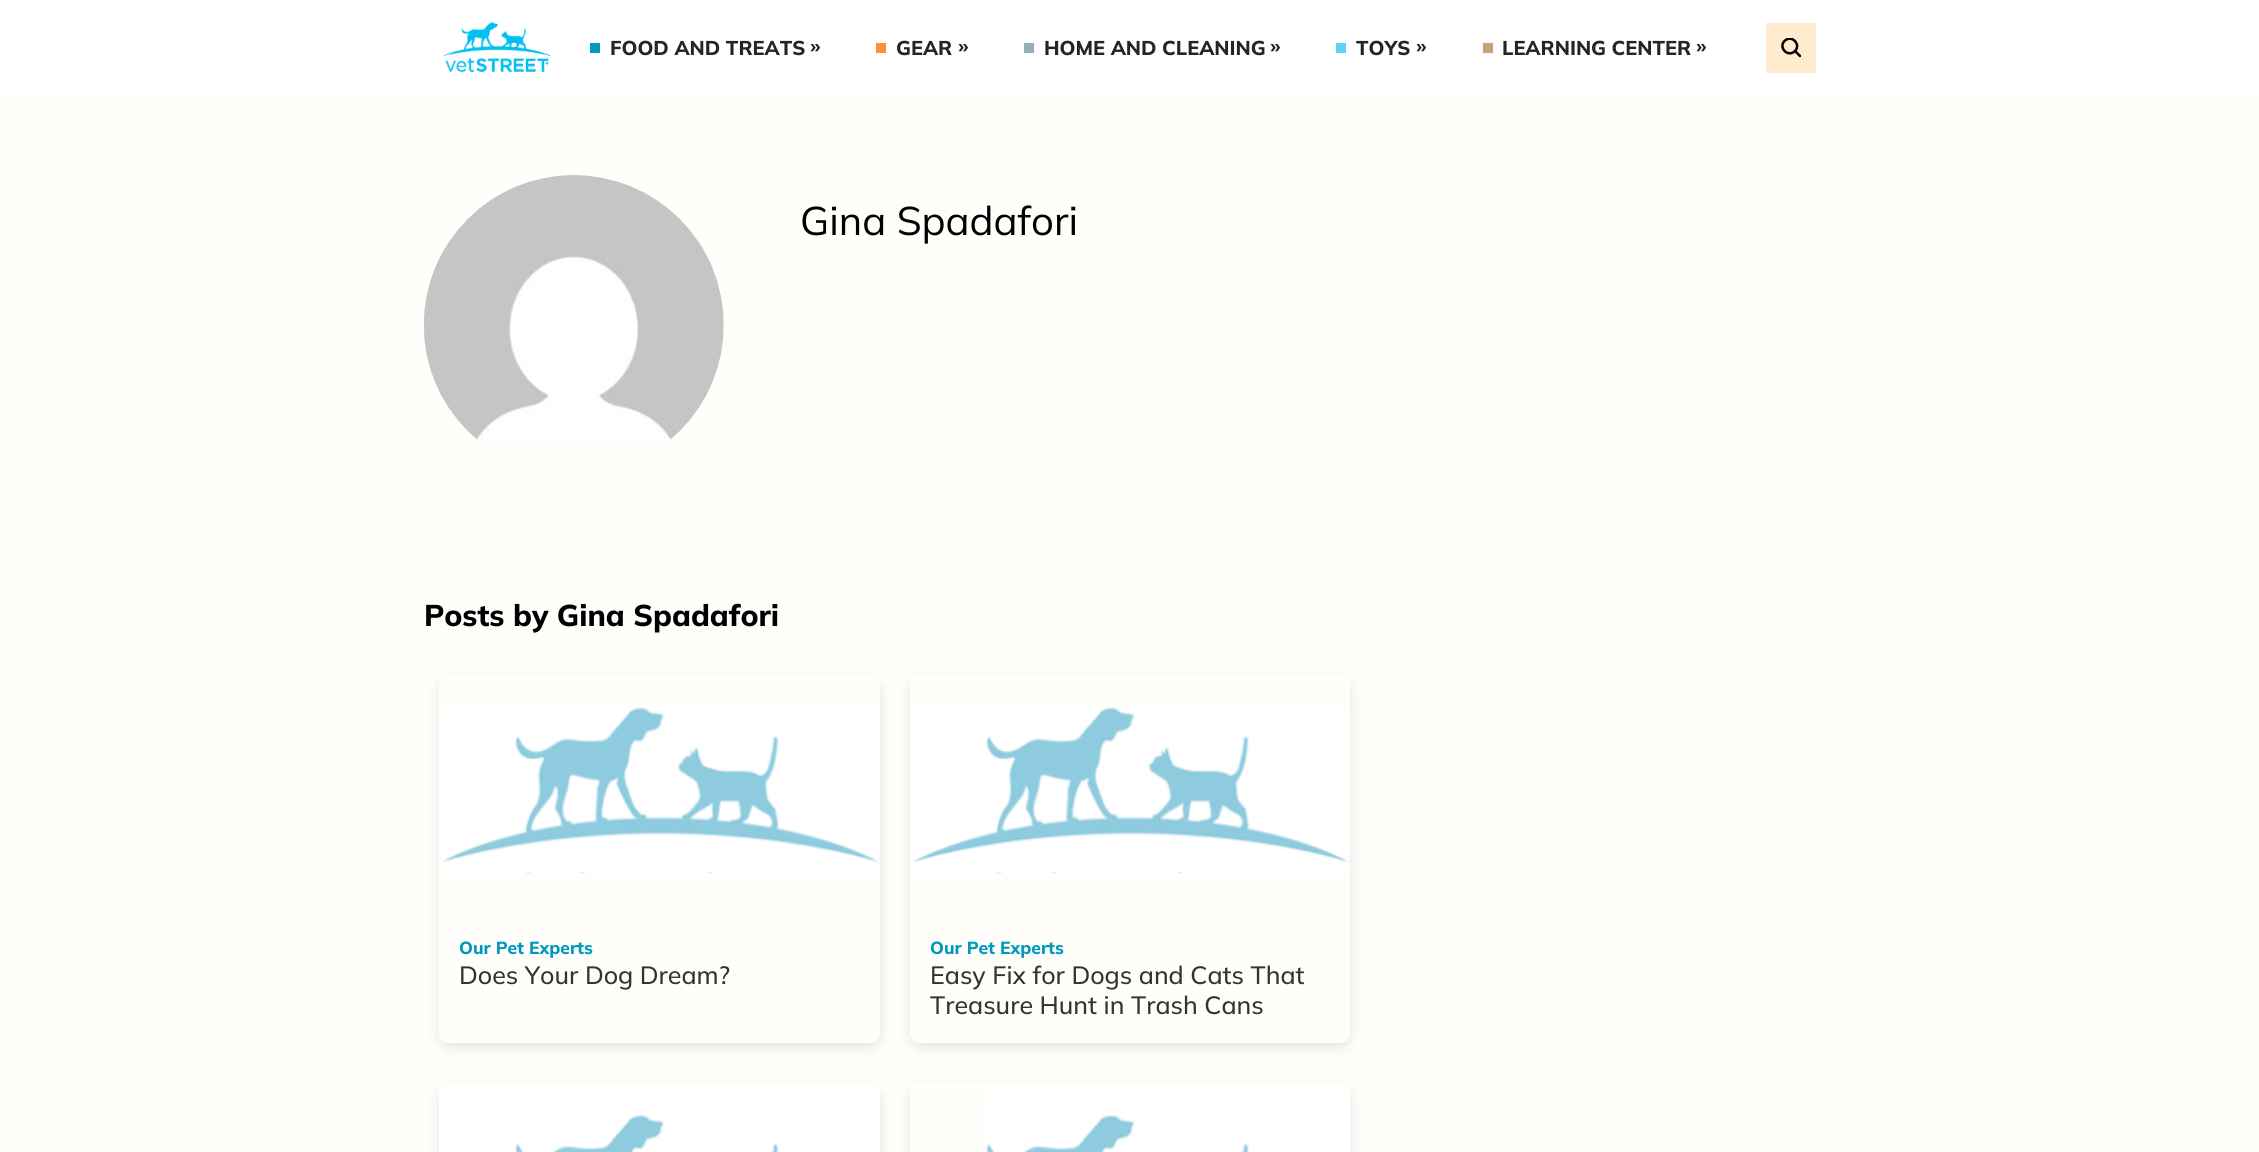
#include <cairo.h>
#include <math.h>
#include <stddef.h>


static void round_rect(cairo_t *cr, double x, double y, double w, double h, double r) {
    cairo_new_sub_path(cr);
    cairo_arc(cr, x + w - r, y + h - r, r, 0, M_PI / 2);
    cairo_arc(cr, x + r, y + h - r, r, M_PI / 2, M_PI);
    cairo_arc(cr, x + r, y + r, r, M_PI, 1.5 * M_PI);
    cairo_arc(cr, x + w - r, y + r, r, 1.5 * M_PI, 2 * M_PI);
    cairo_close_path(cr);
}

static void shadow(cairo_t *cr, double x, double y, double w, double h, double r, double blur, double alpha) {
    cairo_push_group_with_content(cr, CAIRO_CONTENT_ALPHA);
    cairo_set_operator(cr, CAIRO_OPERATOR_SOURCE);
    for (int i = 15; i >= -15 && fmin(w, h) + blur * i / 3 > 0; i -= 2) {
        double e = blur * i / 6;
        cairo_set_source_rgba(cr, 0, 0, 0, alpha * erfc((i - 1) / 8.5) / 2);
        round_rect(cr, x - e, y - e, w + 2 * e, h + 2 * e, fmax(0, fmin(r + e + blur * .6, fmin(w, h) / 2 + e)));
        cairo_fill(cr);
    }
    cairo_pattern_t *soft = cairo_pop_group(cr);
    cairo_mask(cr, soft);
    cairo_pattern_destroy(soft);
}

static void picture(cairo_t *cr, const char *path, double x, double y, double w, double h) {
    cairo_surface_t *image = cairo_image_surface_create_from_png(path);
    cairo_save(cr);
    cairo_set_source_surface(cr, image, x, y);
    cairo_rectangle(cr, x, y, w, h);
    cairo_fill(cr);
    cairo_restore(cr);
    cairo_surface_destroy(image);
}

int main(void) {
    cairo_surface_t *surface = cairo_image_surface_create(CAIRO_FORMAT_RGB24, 2259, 1152);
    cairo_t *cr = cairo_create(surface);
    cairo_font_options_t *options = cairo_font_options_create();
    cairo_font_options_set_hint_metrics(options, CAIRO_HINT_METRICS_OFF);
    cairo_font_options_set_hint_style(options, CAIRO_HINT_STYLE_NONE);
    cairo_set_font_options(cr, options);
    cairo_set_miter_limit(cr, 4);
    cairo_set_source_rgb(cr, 1, 1, 1);
    cairo_paint(cr);
    picture(cr, "img1.png", 443, 22, 107, 50);
    cairo_set_source_rgb(cr, 0.004, 0.608, 0.737);
    cairo_rectangle(cr, 590, 43, 10, 10);
    cairo_fill(cr);
    cairo_select_font_face(cr, "Mulish ExtraBold", CAIRO_FONT_SLANT_NORMAL, CAIRO_FONT_WEIGHT_NORMAL);
    cairo_set_font_size(cr, 20);
    cairo_set_source_rgb(cr, 0.145, 0.145, 0.145);
    cairo_move_to(cr, 610, 55);
    cairo_show_text(cr, "FOOD AND TREATS");
    cairo_move_to(cr, 810, 53);
    cairo_show_text(cr, "»");
    cairo_set_source_rgb(cr, 0.969, 0.576, 0.204);
    cairo_rectangle(cr, 876, 43, 10, 10);
    cairo_fill(cr);
    cairo_set_source_rgb(cr, 0.145, 0.145, 0.145);
    cairo_move_to(cr, 896, 55);
    cairo_show_text(cr, "GEAR");
    cairo_move_to(cr, 958, 53);
    cairo_show_text(cr, "»");
    cairo_set_source_rgb(cr, 0.592, 0.686, 0.725);
    cairo_rectangle(cr, 1024, 43, 10, 10);
    cairo_fill(cr);
    cairo_set_source_rgb(cr, 0.145, 0.145, 0.145);
    cairo_move_to(cr, 1044, 55);
    cairo_show_text(cr, "HOME AND CLEANING");
    cairo_move_to(cr, 1270, 53);
    cairo_show_text(cr, "»");
    cairo_set_source_rgb(cr, 0.38, 0.824, 0.957);
    cairo_rectangle(cr, 1336, 43, 10, 10);
    cairo_fill(cr);
    cairo_set_source_rgb(cr, 0.145, 0.145, 0.145);
    cairo_move_to(cr, 1356, 55);
    cairo_show_text(cr, "TOYS");
    cairo_move_to(cr, 1416, 53);
    cairo_show_text(cr, "»");
    cairo_set_source_rgb(cr, 0.765, 0.635, 0.455);
    cairo_rectangle(cr, 1483, 43, 10, 10);
    cairo_fill(cr);
    cairo_set_source_rgb(cr, 0.145, 0.145, 0.145);
    cairo_move_to(cr, 1502, 55);
    cairo_show_text(cr, "LEARNING CENTER");
    cairo_move_to(cr, 1696, 53);
    cairo_show_text(cr, "»");
    cairo_set_source_rgb(cr, 1, 0.918, 0.808);
    cairo_rectangle(cr, 1766, 23, 50, 50);
    cairo_fill(cr);
    cairo_save(cr);
    cairo_rectangle(cr, 1781, 38, 20, 20);
    cairo_clip(cr);
    cairo_new_path(cr);
    cairo_move_to(cr, 1800, 56);
    cairo_line_to(cr, 1795, 51);
    cairo_move_to(cr, 1795, 51);
    cairo_curve_to(cr, 1801.5, 44.5, 1791.5, 34, 1784.5, 41);
    cairo_curve_to(cr, 1778, 47.5, 1788, 58, 1795, 51);
    cairo_close_path(cr);
    cairo_set_source_rgb(cr, 0, 0, 0);
    cairo_set_line_width(cr, 2.5);
    cairo_set_line_cap(cr, CAIRO_LINE_CAP_ROUND);
    cairo_set_line_join(cr, CAIRO_LINE_JOIN_ROUND);
    cairo_stroke(cr);
    cairo_restore(cr);
    cairo_set_source_rgb(cr, 1, 0.996, 0.984);
    cairo_rectangle(cr, 0, 95, 2259, 1057);
    cairo_fill(cr);
    picture(cr, "img2.png", 424, 175, 300, 265);
    cairo_select_font_face(cr, "Mulish", CAIRO_FONT_SLANT_NORMAL, CAIRO_FONT_WEIGHT_NORMAL);
    cairo_set_font_size(cr, 40);
    cairo_set_source_rgb(cr, 0, 0, 0);
    cairo_move_to(cr, 800, 235);
    cairo_show_text(cr, "Gina Spadafori");
    cairo_select_font_face(cr, "Mulish ExtraBold", CAIRO_FONT_SLANT_NORMAL, CAIRO_FONT_WEIGHT_NORMAL);
    cairo_set_font_size(cr, 30);
    cairo_move_to(cr, 424, 626);
    cairo_show_text(cr, "Posts by Gina Spadafori");
    cairo_save(cr);
    cairo_set_fill_rule(cr, CAIRO_FILL_RULE_EVEN_ODD);
    cairo_new_path(cr);
    cairo_move_to(cr, 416, 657);
    cairo_line_to(cr, 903, 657);
    cairo_line_to(cr, 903, 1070);
    cairo_line_to(cr, 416, 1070);
    cairo_close_path(cr);
    cairo_move_to(cr, 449, 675);
    cairo_line_to(cr, 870, 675);
    cairo_curve_to(cr, 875.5, 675, 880, 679.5, 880, 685);
    cairo_line_to(cr, 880, 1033);
    cairo_curve_to(cr, 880, 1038.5, 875.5, 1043, 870, 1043);
    cairo_line_to(cr, 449, 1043);
    cairo_curve_to(cr, 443.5, 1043, 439, 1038.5, 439, 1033);
    cairo_line_to(cr, 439, 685);
    cairo_curve_to(cr, 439, 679.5, 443.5, 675, 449, 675);
    cairo_close_path(cr);
    cairo_clip(cr);
    cairo_set_source_rgb(cr, 0, 0, 0);
    shadow(cr, 440, 681, 439, 365, 9, 7.5, 0.12);
    cairo_restore(cr);
    picture(cr, "img3.png", 442, 707, 437, 167);
    cairo_set_font_size(cr, 17.5);
    cairo_set_source_rgb(cr, 0, 0.6, 0.745);
    cairo_move_to(cr, 459, 954);
    cairo_show_text(cr, "Our Pet Experts");
    cairo_select_font_face(cr, "Mulish Medium", CAIRO_FONT_SLANT_NORMAL, CAIRO_FONT_WEIGHT_NORMAL);
    cairo_set_font_size(cr, 25);
    cairo_set_source_rgb(cr, 0.2, 0.2, 0.196);
    cairo_move_to(cr, 459, 984);
    cairo_show_text(cr, "Does Your Dog Dream?");
    cairo_save(cr);
    cairo_set_fill_rule(cr, CAIRO_FILL_RULE_EVEN_ODD);
    cairo_new_path(cr);
    cairo_move_to(cr, 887, 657);
    cairo_line_to(cr, 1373, 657);
    cairo_line_to(cr, 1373, 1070);
    cairo_line_to(cr, 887, 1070);
    cairo_close_path(cr);
    cairo_move_to(cr, 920, 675);
    cairo_line_to(cr, 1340, 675);
    cairo_curve_to(cr, 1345.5, 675, 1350, 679.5, 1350, 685);
    cairo_line_to(cr, 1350, 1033);
    cairo_curve_to(cr, 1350, 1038.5, 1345.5, 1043, 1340, 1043);
    cairo_line_to(cr, 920, 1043);
    cairo_curve_to(cr, 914.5, 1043, 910, 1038.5, 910, 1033);
    cairo_line_to(cr, 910, 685);
    cairo_curve_to(cr, 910, 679.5, 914.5, 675, 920, 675);
    cairo_close_path(cr);
    cairo_clip(cr);
    cairo_set_source_rgb(cr, 0, 0, 0);
    shadow(cr, 911, 681, 438, 365, 9, 7.5, 0.12);
    cairo_restore(cr);
    picture(cr, "img4.png", 913, 707, 436, 167);
    cairo_select_font_face(cr, "Mulish ExtraBold", CAIRO_FONT_SLANT_NORMAL, CAIRO_FONT_WEIGHT_NORMAL);
    cairo_set_font_size(cr, 17.5);
    cairo_set_source_rgb(cr, 0, 0.6, 0.745);
    cairo_move_to(cr, 930, 954);
    cairo_show_text(cr, "Our Pet Experts");
    cairo_select_font_face(cr, "Mulish Medium", CAIRO_FONT_SLANT_NORMAL, CAIRO_FONT_WEIGHT_NORMAL);
    cairo_set_font_size(cr, 25);
    cairo_set_source_rgb(cr, 0.2, 0.2, 0.196);
    cairo_move_to(cr, 930, 984);
    cairo_show_text(cr, "Easy Fix for Dogs and Cats That");
    cairo_save(cr);
    cairo_rectangle(cr, 930, 960, 400, 63);
    cairo_clip(cr);
    cairo_move_to(cr, 930, 1014);
    cairo_show_text(cr, "Treasure Hunt in Trash Cans");
    cairo_restore(cr);
    cairo_save(cr);
    cairo_set_fill_rule(cr, CAIRO_FILL_RULE_EVEN_ODD);
    cairo_new_path(cr);
    cairo_move_to(cr, 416, 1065);
    cairo_line_to(cr, 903, 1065);
    cairo_line_to(cr, 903, 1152);
    cairo_line_to(cr, 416, 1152);
    cairo_close_path(cr);
    cairo_move_to(cr, 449, 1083);
    cairo_line_to(cr, 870, 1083);
    cairo_curve_to(cr, 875.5, 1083, 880, 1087.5, 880, 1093);
    cairo_line_to(cr, 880, 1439);
    cairo_curve_to(cr, 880, 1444.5, 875.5, 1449, 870, 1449);
    cairo_line_to(cr, 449, 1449);
    cairo_curve_to(cr, 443.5, 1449, 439, 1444.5, 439, 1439);
    cairo_line_to(cr, 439, 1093);
    cairo_curve_to(cr, 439, 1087.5, 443.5, 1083, 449, 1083);
    cairo_close_path(cr);
    cairo_clip(cr);
    cairo_set_source_rgb(cr, 0, 0, 0);
    shadow(cr, 440, 1089, 439, 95, 9, 7.5, 0.12);
    cairo_restore(cr);
    picture(cr, "img5.png", 439, 1089, 441, 63);
    cairo_save(cr);
    cairo_set_fill_rule(cr, CAIRO_FILL_RULE_EVEN_ODD);
    cairo_new_path(cr);
    cairo_move_to(cr, 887, 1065);
    cairo_line_to(cr, 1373, 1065);
    cairo_line_to(cr, 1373, 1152);
    cairo_line_to(cr, 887, 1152);
    cairo_close_path(cr);
    cairo_move_to(cr, 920, 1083);
    cairo_line_to(cr, 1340, 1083);
    cairo_curve_to(cr, 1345.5, 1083, 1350, 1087.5, 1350, 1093);
    cairo_line_to(cr, 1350, 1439);
    cairo_curve_to(cr, 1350, 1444.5, 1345.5, 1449, 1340, 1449);
    cairo_line_to(cr, 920, 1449);
    cairo_curve_to(cr, 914.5, 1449, 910, 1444.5, 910, 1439);
    cairo_line_to(cr, 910, 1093);
    cairo_curve_to(cr, 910, 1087.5, 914.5, 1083, 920, 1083);
    cairo_close_path(cr);
    cairo_clip(cr);
    cairo_set_source_rgb(cr, 0, 0, 0);
    shadow(cr, 911, 1089, 438, 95, 9, 7.5, 0.12);
    cairo_restore(cr);
    picture(cr, "img6.png", 986, 1091, 364, 61);
    cairo_surface_write_to_png(surface, "page.png");
    cairo_font_options_destroy(options);
    cairo_destroy(cr);
    cairo_surface_destroy(surface);
    return 0;
}
